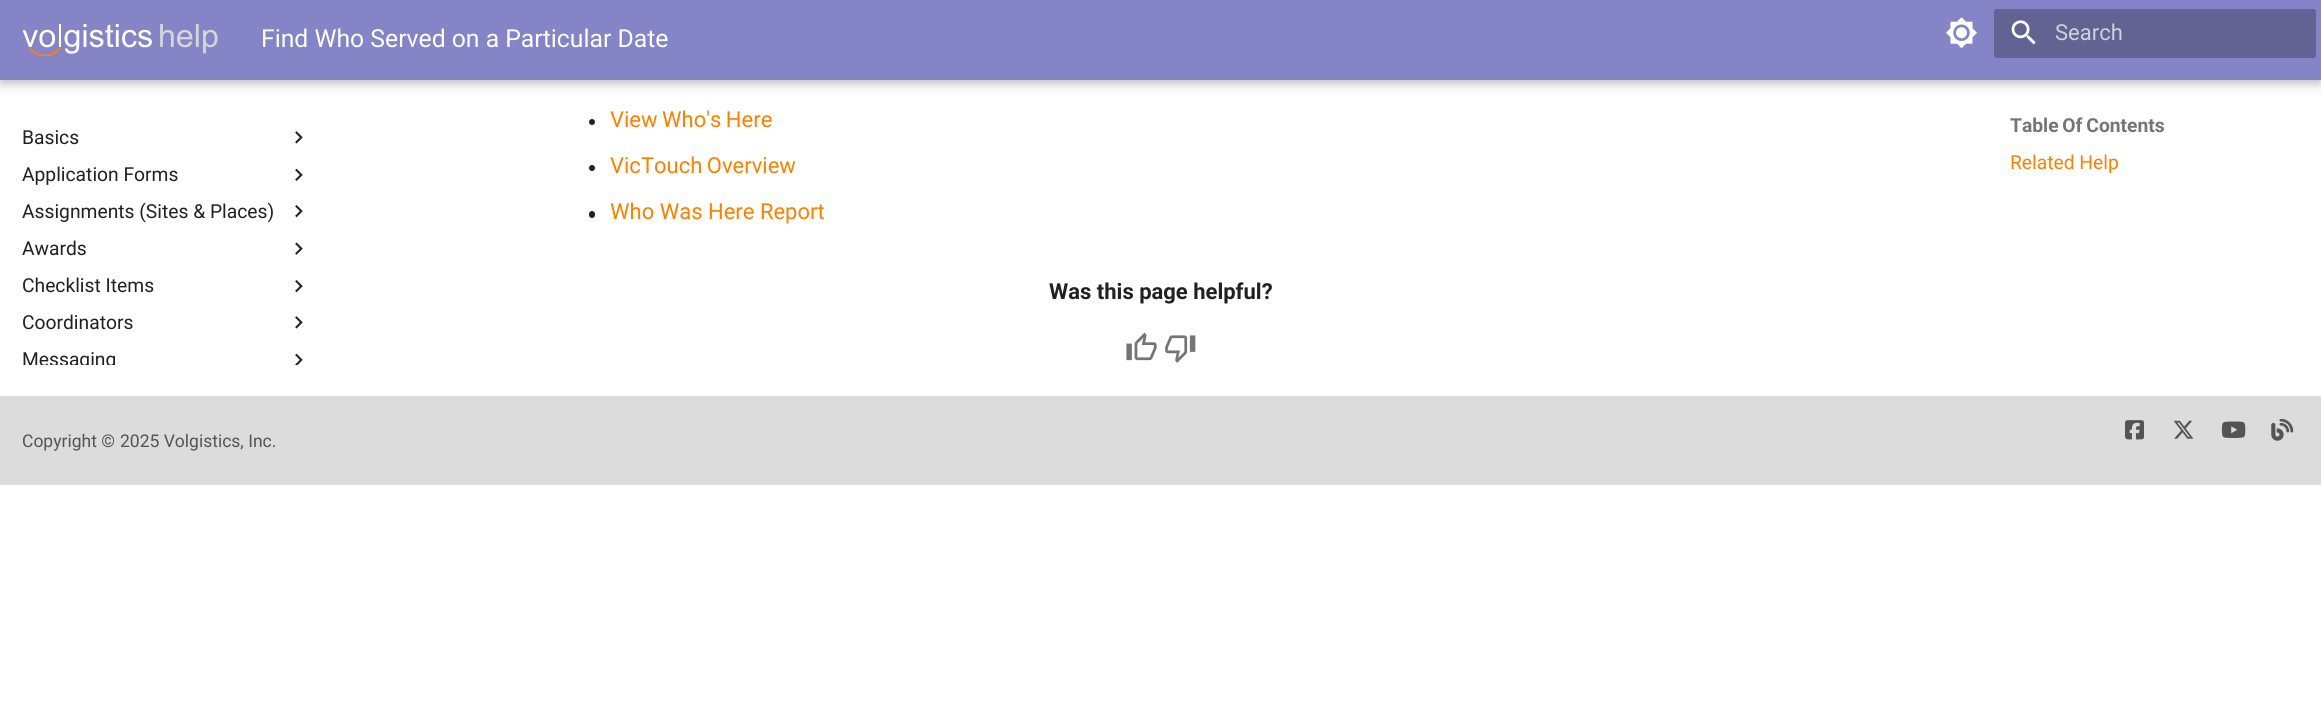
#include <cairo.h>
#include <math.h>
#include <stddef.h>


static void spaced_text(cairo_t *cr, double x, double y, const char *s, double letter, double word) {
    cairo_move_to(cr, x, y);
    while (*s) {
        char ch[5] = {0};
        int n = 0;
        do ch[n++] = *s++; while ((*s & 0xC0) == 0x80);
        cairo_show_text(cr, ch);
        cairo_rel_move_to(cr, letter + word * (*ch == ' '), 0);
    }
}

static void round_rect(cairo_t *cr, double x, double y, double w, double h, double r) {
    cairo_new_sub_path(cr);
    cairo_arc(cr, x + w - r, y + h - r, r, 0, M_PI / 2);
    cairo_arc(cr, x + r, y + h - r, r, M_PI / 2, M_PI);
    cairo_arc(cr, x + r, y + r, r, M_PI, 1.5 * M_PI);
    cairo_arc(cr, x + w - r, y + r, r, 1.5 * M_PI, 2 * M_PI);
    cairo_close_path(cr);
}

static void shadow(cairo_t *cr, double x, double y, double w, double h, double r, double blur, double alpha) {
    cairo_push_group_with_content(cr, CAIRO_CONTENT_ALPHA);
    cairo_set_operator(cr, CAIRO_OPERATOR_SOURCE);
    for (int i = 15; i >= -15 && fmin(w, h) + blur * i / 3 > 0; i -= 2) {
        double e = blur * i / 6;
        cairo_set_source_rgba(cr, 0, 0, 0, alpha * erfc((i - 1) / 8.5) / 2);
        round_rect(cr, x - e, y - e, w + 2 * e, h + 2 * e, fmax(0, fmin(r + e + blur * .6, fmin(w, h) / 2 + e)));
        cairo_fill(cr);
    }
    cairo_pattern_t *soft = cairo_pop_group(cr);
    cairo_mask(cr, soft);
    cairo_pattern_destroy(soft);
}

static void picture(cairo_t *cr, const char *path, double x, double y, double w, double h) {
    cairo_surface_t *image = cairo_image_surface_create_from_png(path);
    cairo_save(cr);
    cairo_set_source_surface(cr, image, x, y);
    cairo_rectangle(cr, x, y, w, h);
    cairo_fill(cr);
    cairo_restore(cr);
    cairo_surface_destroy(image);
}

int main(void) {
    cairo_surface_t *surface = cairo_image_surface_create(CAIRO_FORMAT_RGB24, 2321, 719);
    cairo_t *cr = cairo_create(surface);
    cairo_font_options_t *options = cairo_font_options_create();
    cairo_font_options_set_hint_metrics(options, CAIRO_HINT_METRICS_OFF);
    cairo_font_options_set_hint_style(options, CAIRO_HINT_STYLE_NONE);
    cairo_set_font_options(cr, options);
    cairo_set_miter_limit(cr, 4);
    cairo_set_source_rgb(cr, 1, 1, 1);
    cairo_paint(cr);
    cairo_set_source_rgb(cr, 0, 0, 0);
    shadow(cr, 0, 5, 2321, 80, 0, 5.5, 0.2);
    shadow(cr, 0, 0, 2321, 80, 0, 3, 0.1);
    cairo_set_source_rgb(cr, 0.518, 0.518, 0.776);
    cairo_rectangle(cr, 0, 0, 2321, 80);
    cairo_fill(cr);
    picture(cr, "img1.png", 23, 24, 195, 32);
    cairo_select_font_face(cr, "Roboto", CAIRO_FONT_SLANT_NORMAL, CAIRO_FONT_WEIGHT_NORMAL);
    cairo_set_font_size(cr, 24.75);
    cairo_set_source_rgb(cr, 1, 1, 1);
    cairo_move_to(cr, 261, 47);
    cairo_show_text(cr, "Find Who Served on a Particular Date");
    picture(cr, "img2.png", 1946, 17, 31, 32);
    cairo_set_source_rgb(cr, 0.384, 0.384, 0.576);
    round_rect(cr, 1994, 9, 322, 49, 2.5);
    cairo_fill(cr);
    picture(cr, "img3.png", 2011, 20, 25, 25);
    cairo_set_font_size(cr, 22);
    cairo_set_source_rgb(cr, 0.816, 0.816, 0.875);
    cairo_move_to(cr, 2055, 40);
    cairo_show_text(cr, "Search");
    cairo_set_font_size(cr, 19.25);
    cairo_set_source_rgb(cr, 0.129, 0.129, 0.129);
    cairo_move_to(cr, 22, 144);
    cairo_show_text(cr, "Basics");
    picture(cr, "img4.png", 295, 131, 8, 13);
    cairo_move_to(cr, 22, 181);
    cairo_show_text(cr, "Application Forms");
    picture(cr, "img5.png", 295, 168, 8, 13);
    cairo_move_to(cr, 22, 218);
    cairo_show_text(cr, "Assignments (Sites & Places)");
    picture(cr, "img6.png", 295, 205, 8, 13);
    cairo_move_to(cr, 22, 255);
    cairo_show_text(cr, "Awards");
    picture(cr, "img7.png", 295, 242, 8, 13);
    cairo_move_to(cr, 22, 292);
    cairo_show_text(cr, "Checklist Items");
    picture(cr, "img6.png", 295, 280, 8, 13);
    cairo_move_to(cr, 22, 329);
    cairo_show_text(cr, "Coordinators");
    picture(cr, "img4.png", 295, 316, 8, 13);
    cairo_save(cr);
    cairo_rectangle(cr, 23, 348, 93, 17);
    cairo_clip(cr);
    cairo_move_to(cr, 22, 366);
    cairo_show_text(cr, "Messaging");
    cairo_restore(cr);
    picture(cr, "img8.png", 295, 353, 8, 12);
    cairo_arc(cr, 592, 122, 3, 0, 2 * M_PI);
    cairo_fill(cr);
    cairo_set_font_size(cr, 22);
    cairo_set_source_rgb(cr, 1, 0.502, 0);
    spaced_text(cr, 610, 127, "View Who's Here", 0, -1);
    cairo_set_source_rgb(cr, 0.129, 0.129, 0.129);
    cairo_new_path(cr);
    cairo_arc(cr, 592, 168, 3, 0, 2 * M_PI);
    cairo_fill(cr);
    cairo_set_source_rgb(cr, 1, 0.502, 0);
    spaced_text(cr, 610, 173, "VicTouch Overview", 0, -1);
    cairo_set_source_rgb(cr, 0.129, 0.129, 0.129);
    round_rect(cr, 589, 211, 6, 7, 3);
    cairo_fill(cr);
    cairo_set_source_rgb(cr, 1, 0.502, 0);
    cairo_move_to(cr, 610, 219);
    cairo_show_text(cr, "Who Was Here Report");
    cairo_select_font_face(cr, "Roboto", CAIRO_FONT_SLANT_NORMAL, CAIRO_FONT_WEIGHT_BOLD);
    cairo_set_source_rgb(cr, 0.129, 0.129, 0.129);
    cairo_move_to(cr, 1049, 299);
    cairo_show_text(cr, "Was this page helpful?");
    picture(cr, "img9.png", 1126, 332, 31, 29);
    picture(cr, "img10.png", 1165, 335, 31, 28);
    cairo_save(cr);
    cairo_rectangle(cr, 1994, 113, 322, 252);
    cairo_clip(cr);
    cairo_set_fill_rule(cr, CAIRO_FILL_RULE_EVEN_ODD);
    cairo_new_path(cr);
    cairo_move_to(cr, 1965, 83);
    cairo_line_to(cr, 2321, 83);
    cairo_line_to(cr, 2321, 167);
    cairo_line_to(cr, 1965, 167);
    cairo_close_path(cr);
    cairo_move_to(cr, 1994, 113);
    cairo_line_to(cr, 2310, 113);
    cairo_line_to(cr, 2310, 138);
    cairo_line_to(cr, 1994, 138);
    cairo_close_path(cr);
    cairo_clip(cr);
    cairo_set_source_rgb(cr, 1, 1, 1);
    shadow(cr, 1983, 101, 338, 48, 0, 5.5, 1);
    cairo_restore(cr);
    cairo_set_font_size(cr, 19.25);
    cairo_set_source_rgb(cr, 0.459, 0.459, 0.459);
    spaced_text(cr, 2010, 132, "Table Of Contents", 0, -1);
    cairo_select_font_face(cr, "Roboto", CAIRO_FONT_SLANT_NORMAL, CAIRO_FONT_WEIGHT_NORMAL);
    cairo_set_source_rgb(cr, 1, 0.502, 0);
    cairo_move_to(cr, 2010, 169);
    cairo_show_text(cr, "Related Help");
    cairo_set_source_rgb(cr, 0.863, 0.863, 0.863);
    cairo_rectangle(cr, 0, 396, 2321, 89);
    cairo_fill(cr);
    cairo_set_font_size(cr, 17.5);
    cairo_set_source_rgb(cr, 0.329, 0.329, 0.329);
    cairo_move_to(cr, 22, 447);
    cairo_show_text(cr, "Copyright ©");
    cairo_move_to(cr, 120, 447);
    cairo_show_text(cr, "2025 Volgistics, Inc.");
    picture(cr, "img11.png", 2125, 420, 19, 20);
    picture(cr, "img12.png", 2173, 420, 21, 19);
    picture(cr, "img13.png", 2221, 421, 25, 17);
    picture(cr, "img14.png", 2271, 419, 23, 22);
    cairo_surface_write_to_png(surface, "page.png");
    cairo_font_options_destroy(options);
    cairo_destroy(cr);
    cairo_surface_destroy(surface);
    return 0;
}
